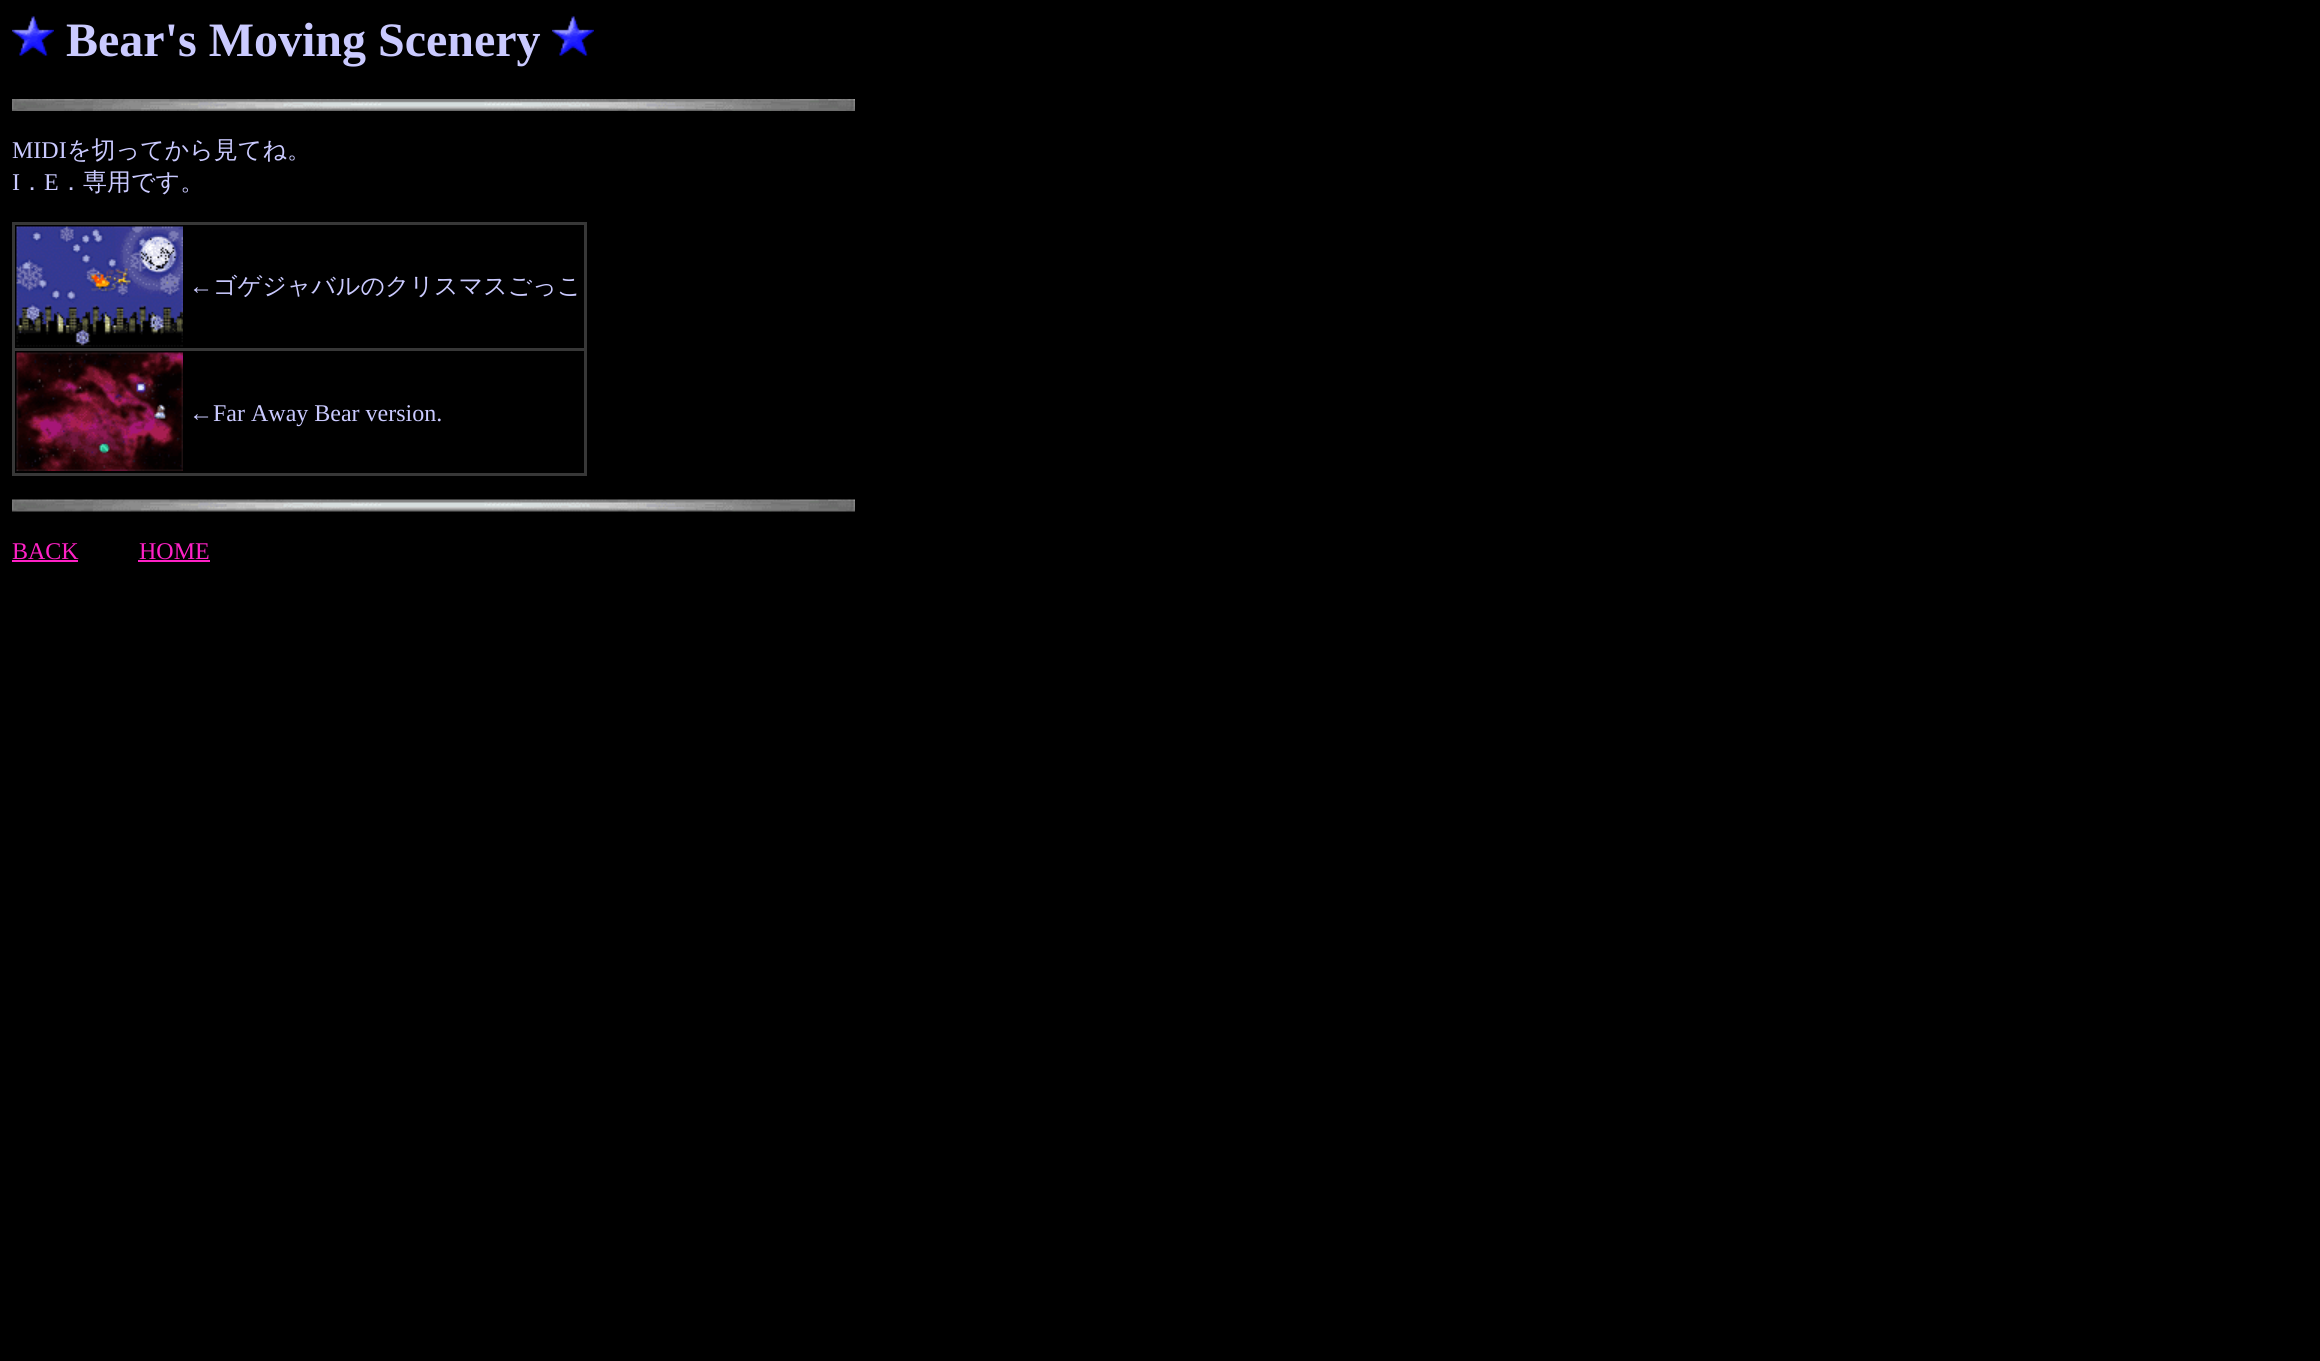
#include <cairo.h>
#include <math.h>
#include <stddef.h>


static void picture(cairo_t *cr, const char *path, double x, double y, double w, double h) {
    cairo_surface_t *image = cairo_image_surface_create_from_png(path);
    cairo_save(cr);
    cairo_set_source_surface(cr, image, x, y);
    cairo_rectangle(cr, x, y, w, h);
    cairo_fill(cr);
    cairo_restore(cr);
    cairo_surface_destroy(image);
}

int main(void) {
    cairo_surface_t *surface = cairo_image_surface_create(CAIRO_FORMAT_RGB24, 2320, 1361);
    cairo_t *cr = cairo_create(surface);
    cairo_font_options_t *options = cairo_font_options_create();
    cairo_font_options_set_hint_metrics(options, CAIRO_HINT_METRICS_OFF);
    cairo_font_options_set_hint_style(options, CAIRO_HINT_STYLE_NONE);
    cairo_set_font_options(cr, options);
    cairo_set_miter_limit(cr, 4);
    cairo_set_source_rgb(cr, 0, 0, 0);
    cairo_paint(cr);
    picture(cr, "img1.png", 12, 16, 42, 40);
    cairo_select_font_face(cr, "Liberation Serif", CAIRO_FONT_SLANT_NORMAL, CAIRO_FONT_WEIGHT_BOLD);
    cairo_set_font_size(cr, 48);
    cairo_set_source_rgb(cr, 0.792, 0.792, 1);
    cairo_move_to(cr, 66, 56);
    cairo_show_text(cr, "Bear's Moving Scenery");
    picture(cr, "img1.png", 552, 16, 42, 40);
    picture(cr, "img2.png", 12, 99, 843, 12);
    cairo_select_font_face(cr, "Liberation Serif", CAIRO_FONT_SLANT_NORMAL, CAIRO_FONT_WEIGHT_NORMAL);
    cairo_set_font_size(cr, 24);
    cairo_move_to(cr, 12, 158);
    cairo_show_text(cr, "MIDI");
    cairo_select_font_face(cr, "WenQuanYi Zen Hei Medium", CAIRO_FONT_SLANT_NORMAL, CAIRO_FONT_WEIGHT_NORMAL);
    cairo_move_to(cr, 67, 158);
    cairo_show_text(cr, "を切ってから見てね。");
    cairo_select_font_face(cr, "Liberation Serif", CAIRO_FONT_SLANT_NORMAL, CAIRO_FONT_WEIGHT_NORMAL);
    cairo_move_to(cr, 12, 190);
    cairo_show_text(cr, "I");
    cairo_select_font_face(cr, "WenQuanYi Zen Hei Medium", CAIRO_FONT_SLANT_NORMAL, CAIRO_FONT_WEIGHT_NORMAL);
    cairo_move_to(cr, 20, 190);
    cairo_show_text(cr, "．");
    cairo_select_font_face(cr, "Liberation Serif", CAIRO_FONT_SLANT_NORMAL, CAIRO_FONT_WEIGHT_NORMAL);
    cairo_move_to(cr, 44, 190);
    cairo_show_text(cr, "E");
    cairo_select_font_face(cr, "WenQuanYi Zen Hei Medium", CAIRO_FONT_SLANT_NORMAL, CAIRO_FONT_WEIGHT_NORMAL);
    cairo_move_to(cr, 59, 190);
    cairo_show_text(cr, "．専用です。");
    cairo_set_source_rgb(cr, 0.216, 0.216, 0.216);
    cairo_rectangle(cr, 12, 222, 575, 254);
    cairo_fill(cr);
    cairo_set_source_rgb(cr, 0, 0, 0);
    cairo_rectangle(cr, 15, 225, 569, 123);
    cairo_fill(cr);
    picture(cr, "img3.png", 16, 226, 167, 121);
    cairo_select_font_face(cr, "Liberation Serif", CAIRO_FONT_SLANT_NORMAL, CAIRO_FONT_WEIGHT_NORMAL);
    cairo_set_source_rgb(cr, 0.792, 0.792, 1);
    cairo_move_to(cr, 189, 294);
    cairo_show_text(cr, "←");
    cairo_select_font_face(cr, "WenQuanYi Zen Hei Medium", CAIRO_FONT_SLANT_NORMAL, CAIRO_FONT_WEIGHT_NORMAL);
    cairo_move_to(cr, 213, 294);
    cairo_show_text(cr, "ゴゲジャバルのクリスマスごっこ");
    cairo_set_source_rgb(cr, 0, 0, 0);
    cairo_rectangle(cr, 15, 351, 569, 122);
    cairo_fill(cr);
    picture(cr, "img4.png", 16, 352, 167, 119);
    cairo_select_font_face(cr, "Liberation Serif", CAIRO_FONT_SLANT_NORMAL, CAIRO_FONT_WEIGHT_NORMAL);
    cairo_set_source_rgb(cr, 0.792, 0.792, 1);
    cairo_move_to(cr, 189, 421);
    cairo_show_text(cr, "←Far Away Bear version.");
    picture(cr, "img5.png", 12, 499, 843, 13);
    cairo_set_source_rgb(cr, 1, 0.129, 0.776);
    cairo_move_to(cr, 12, 559);
    cairo_show_text(cr, "BACK");
    cairo_rectangle(cr, 12, 560, 66, 2);
    cairo_fill(cr);
    cairo_move_to(cr, 139, 559);
    cairo_show_text(cr, "HOME");
    cairo_rectangle(cr, 138, 560, 72, 2);
    cairo_fill(cr);
    cairo_surface_write_to_png(surface, "page.png");
    cairo_font_options_destroy(options);
    cairo_destroy(cr);
    cairo_surface_destroy(surface);
    return 0;
}
